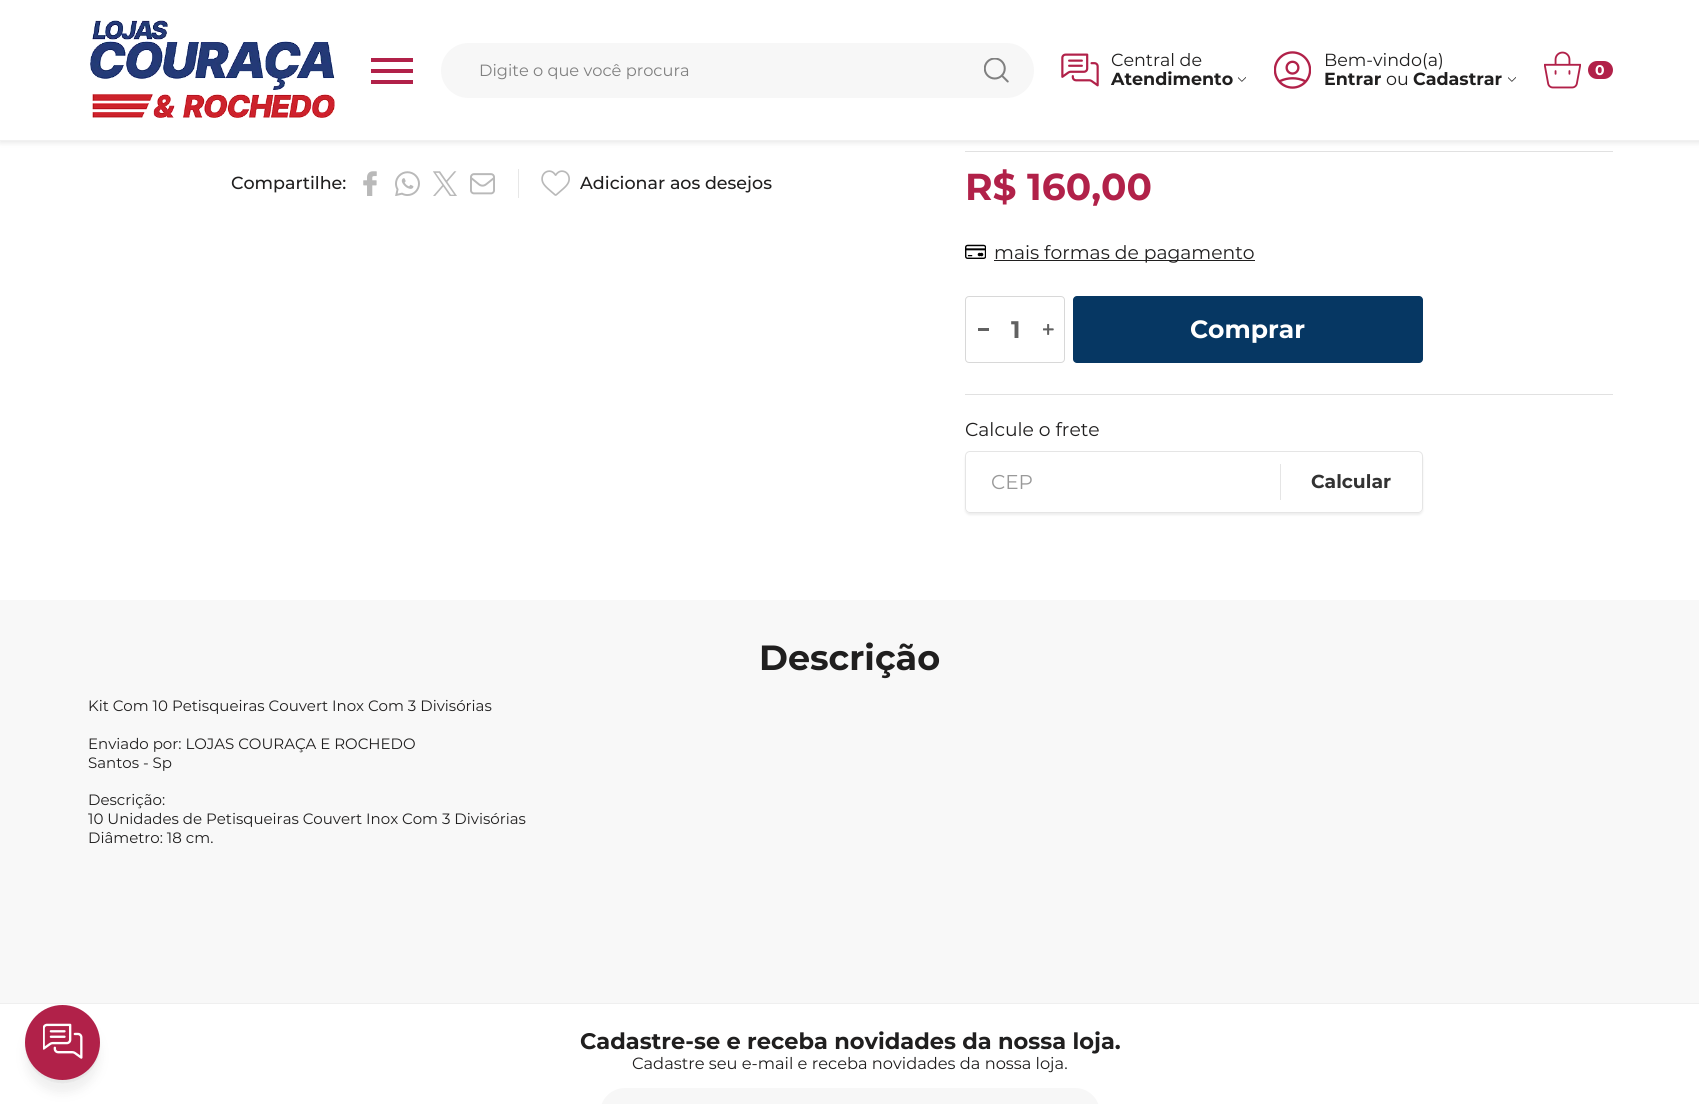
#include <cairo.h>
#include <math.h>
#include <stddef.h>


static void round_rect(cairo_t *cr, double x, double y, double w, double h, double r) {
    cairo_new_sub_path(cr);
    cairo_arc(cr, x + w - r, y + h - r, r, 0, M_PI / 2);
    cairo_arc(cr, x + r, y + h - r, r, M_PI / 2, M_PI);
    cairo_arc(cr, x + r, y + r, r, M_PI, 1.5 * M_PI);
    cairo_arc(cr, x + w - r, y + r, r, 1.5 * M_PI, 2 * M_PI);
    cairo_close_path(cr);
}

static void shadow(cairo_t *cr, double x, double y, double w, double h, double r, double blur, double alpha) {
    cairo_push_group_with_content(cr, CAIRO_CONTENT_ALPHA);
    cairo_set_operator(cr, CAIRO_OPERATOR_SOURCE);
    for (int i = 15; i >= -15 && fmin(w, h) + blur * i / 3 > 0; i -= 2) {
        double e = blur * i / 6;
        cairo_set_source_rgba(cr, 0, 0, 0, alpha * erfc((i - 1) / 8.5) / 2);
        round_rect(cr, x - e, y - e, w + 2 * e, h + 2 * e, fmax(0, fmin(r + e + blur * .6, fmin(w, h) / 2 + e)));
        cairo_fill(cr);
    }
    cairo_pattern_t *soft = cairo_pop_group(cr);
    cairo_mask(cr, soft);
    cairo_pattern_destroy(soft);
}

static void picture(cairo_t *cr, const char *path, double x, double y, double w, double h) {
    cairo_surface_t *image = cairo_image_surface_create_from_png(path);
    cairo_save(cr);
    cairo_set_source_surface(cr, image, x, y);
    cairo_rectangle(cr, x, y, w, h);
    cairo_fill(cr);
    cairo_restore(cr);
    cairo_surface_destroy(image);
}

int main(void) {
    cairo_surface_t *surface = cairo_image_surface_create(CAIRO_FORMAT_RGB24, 1699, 1104);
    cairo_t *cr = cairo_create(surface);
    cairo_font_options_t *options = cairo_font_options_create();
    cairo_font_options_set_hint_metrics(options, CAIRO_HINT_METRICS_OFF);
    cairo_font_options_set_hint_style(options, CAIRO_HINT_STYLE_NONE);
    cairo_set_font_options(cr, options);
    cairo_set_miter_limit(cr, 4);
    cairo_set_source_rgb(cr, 0.969, 0.969, 0.969);
    cairo_paint(cr);
    cairo_set_source_rgb(cr, 0.937, 0.937, 0.937);
    cairo_rectangle(cr, 0, 1003, 1699, 1);
    cairo_fill(cr);
    cairo_set_source_rgb(cr, 1, 1, 1);
    cairo_rectangle(cr, 0, 1004, 1699, 100);
    cairo_fill(cr);
    cairo_set_source_rgb(cr, 0.404, 0.404, 0.404);
    shadow(cr, 25, 1018, 75, 75, 37.5, 5, 0.1);
    cairo_set_source_rgb(cr, 0, 0, 0);
    shadow(cr, 25, 1008, 75, 75, 37.5, 0.5, 0.04);
    cairo_set_source_rgb(cr, 0.694, 0.129, 0.286);
    cairo_arc(cr, 62.5, 1042.5, 37.5, 0, 2 * M_PI);
    cairo_fill(cr);
    picture(cr, "img1.png", 43, 1023, 40, 36);
    cairo_set_source_rgb(cr, 1, 1, 1);
    cairo_rectangle(cr, 0, 141, 1699, 459);
    cairo_fill(cr);
    cairo_set_source_rgb(cr, 0.882, 0.882, 0.882);
    cairo_rectangle(cr, 965, 151, 648, 1);
    cairo_fill(cr);
    cairo_set_source_rgb(cr, 0.322, 0.322, 0.322);
    shadow(cr, 0, 1, 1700, 142, 0, 2.5, 0.13);
    cairo_set_source_rgb(cr, 1, 1, 1);
    cairo_rectangle(cr, 0, 0, 1699, 140);
    cairo_fill(cr);
    cairo_set_source_rgb(cr, 0.945, 0.945, 0.945);
    cairo_rectangle(cr, 0, 140, 1699, 1);
    cairo_fill(cr);
    picture(cr, "img2.png", 90, 20, 245, 98);
    cairo_set_source_rgb(cr, 0.694, 0.129, 0.286);
    cairo_rectangle(cr, 371, 80, 42, 4);
    cairo_fill(cr);
    cairo_rectangle(cr, 371, 58, 42, 4);
    cairo_fill(cr);
    cairo_rectangle(cr, 371, 69, 42, 4);
    cairo_fill(cr);
    cairo_set_source_rgb(cr, 0.965, 0.965, 0.965);
    round_rect(cr, 441, 43, 593, 55, 27.5);
    cairo_fill(cr);
    cairo_select_font_face(cr, "Montserrat", CAIRO_FONT_SLANT_NORMAL, CAIRO_FONT_WEIGHT_NORMAL);
    cairo_set_font_size(cr, 16.25);
    cairo_set_source_rgb(cr, 0.502, 0.502, 0.502);
    cairo_move_to(cr, 479, 76);
    cairo_show_text(cr, "Digite o que você procura");
    picture(cr, "img3.png", 984, 58, 25, 25);
    picture(cr, "img4.png", 1061, 53, 38, 34);
    cairo_set_font_size(cr, 17.5);
    cairo_set_source_rgb(cr, 0.125, 0.122, 0.122);
    cairo_move_to(cr, 1111, 66);
    cairo_show_text(cr, "Central de");
    cairo_select_font_face(cr, "Montserrat", CAIRO_FONT_SLANT_NORMAL, CAIRO_FONT_WEIGHT_BOLD);
    cairo_move_to(cr, 1111, 85);
    cairo_show_text(cr, "Atendimento");
    picture(cr, "img5.png", 1238, 77, 8, 5);
    picture(cr, "img6.png", 1274, 51, 37, 38);
    cairo_select_font_face(cr, "Montserrat", CAIRO_FONT_SLANT_NORMAL, CAIRO_FONT_WEIGHT_NORMAL);
    cairo_move_to(cr, 1324, 66);
    cairo_show_text(cr, "Bem-vindo(a)");
    cairo_select_font_face(cr, "Montserrat", CAIRO_FONT_SLANT_NORMAL, CAIRO_FONT_WEIGHT_BOLD);
    cairo_move_to(cr, 1324, 85);
    cairo_show_text(cr, "Entrar");
    cairo_select_font_face(cr, "Montserrat", CAIRO_FONT_SLANT_NORMAL, CAIRO_FONT_WEIGHT_NORMAL);
    cairo_move_to(cr, 1386, 85);
    cairo_show_text(cr, "ou");
    cairo_select_font_face(cr, "Montserrat", CAIRO_FONT_SLANT_NORMAL, CAIRO_FONT_WEIGHT_BOLD);
    cairo_move_to(cr, 1413, 85);
    cairo_show_text(cr, "Cadastrar");
    picture(cr, "img5.png", 1508, 77, 8, 5);
    picture(cr, "img7.png", 1544, 51, 37, 38);
    cairo_set_source_rgb(cr, 0.694, 0.129, 0.286);
    round_rect(cr, 1588, 61, 25, 18, 9);
    cairo_fill(cr);
    cairo_set_font_size(cr, 14);
    cairo_set_source_rgb(cr, 1, 1, 1);
    cairo_move_to(cr, 1595, 75);
    cairo_show_text(cr, "0");
    cairo_select_font_face(cr, "Montserrat Medium", CAIRO_FONT_SLANT_NORMAL, CAIRO_FONT_WEIGHT_NORMAL);
    cairo_set_font_size(cr, 17.5);
    cairo_set_source_rgb(cr, 0.125, 0.122, 0.122);
    cairo_move_to(cr, 231, 189);
    cairo_show_text(cr, "Compartilhe:");
    picture(cr, "img8.png", 363, 171, 14, 25);
    picture(cr, "img9.png", 395, 171, 25, 25);
    picture(cr, "img10.png", 433, 171, 24, 25);
    picture(cr, "img11.png", 470, 173, 25, 22);
    cairo_set_source_rgb(cr, 0.906, 0.906, 0.906);
    cairo_rectangle(cr, 518, 169, 1, 29);
    cairo_fill(cr);
    picture(cr, "img12.png", 541, 170, 29, 26);
    cairo_set_source_rgb(cr, 0.125, 0.122, 0.122);
    cairo_move_to(cr, 580, 189);
    cairo_show_text(cr, "Adicionar aos desejos");
    cairo_select_font_face(cr, "Montserrat", CAIRO_FONT_SLANT_NORMAL, CAIRO_FONT_WEIGHT_BOLD);
    cairo_set_font_size(cr, 37.5);
    cairo_set_source_rgb(cr, 0.694, 0.129, 0.286);
    cairo_move_to(cr, 965, 200);
    cairo_show_text(cr, "R$ 160,00");
    picture(cr, "img13.png", 965, 244, 21, 15);
    cairo_set_source_rgb(cr, 0.125, 0.122, 0.122);
    cairo_rectangle(cr, 994, 260, 261, 1);
    cairo_fill(cr);
    cairo_select_font_face(cr, "Montserrat", CAIRO_FONT_SLANT_NORMAL, CAIRO_FONT_WEIGHT_NORMAL);
    cairo_set_font_size(cr, 18.75);
    cairo_move_to(cr, 994, 259);
    cairo_show_text(cr, "mais formas de pagamento");
    round_rect(cr, 965.5, 296.5, 99, 66, 3.5);
    cairo_set_source_rgb(cr, 0.847, 0.847, 0.847);
    cairo_set_line_width(cr, 1);
    cairo_stroke(cr);
    cairo_set_source_rgb(cr, 0.38, 0.38, 0.38);
    cairo_rectangle(cr, 978, 328, 11, 3);
    cairo_fill(cr);
    cairo_select_font_face(cr, "Montserrat", CAIRO_FONT_SLANT_NORMAL, CAIRO_FONT_WEIGHT_BOLD);
    cairo_set_font_size(cr, 24);
    cairo_move_to(cr, 1011, 338);
    cairo_show_text(cr, "1");
    picture(cr, "img14.png", 1043, 324, 11, 11);
    cairo_set_source_rgb(cr, 0.027, 0.216, 0.388);
    round_rect(cr, 1073, 296, 350, 67, 4);
    cairo_fill(cr);
    cairo_set_font_size(cr, 25);
    cairo_set_source_rgb(cr, 1, 1, 1);
    cairo_move_to(cr, 1190, 338);
    cairo_show_text(cr, "Comprar");
    cairo_set_source_rgb(cr, 0.882, 0.882, 0.882);
    cairo_rectangle(cr, 965, 394, 648, 1);
    cairo_fill(cr);
    cairo_select_font_face(cr, "Montserrat", CAIRO_FONT_SLANT_NORMAL, CAIRO_FONT_WEIGHT_NORMAL);
    cairo_set_font_size(cr, 18.75);
    cairo_set_source_rgb(cr, 0.125, 0.122, 0.122);
    cairo_move_to(cr, 965, 436);
    cairo_show_text(cr, "Calcule o frete");
    cairo_save(cr);
    cairo_set_fill_rule(cr, CAIRO_FILL_RULE_EVEN_ODD);
    cairo_new_path(cr);
    cairo_move_to(cr, 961, 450);
    cairo_line_to(cr, 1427, 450);
    cairo_line_to(cr, 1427, 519);
    cairo_line_to(cr, 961, 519);
    cairo_close_path(cr);
    cairo_move_to(cr, 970, 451);
    cairo_line_to(cr, 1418, 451);
    cairo_curve_to(cr, 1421, 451, 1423, 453, 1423, 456);
    cairo_line_to(cr, 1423, 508);
    cairo_curve_to(cr, 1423, 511, 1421, 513, 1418, 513);
    cairo_line_to(cr, 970, 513);
    cairo_curve_to(cr, 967, 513, 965, 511, 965, 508);
    cairo_line_to(cr, 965, 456);
    cairo_curve_to(cr, 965, 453, 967, 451, 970, 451);
    cairo_close_path(cr);
    cairo_clip(cr);
    cairo_set_source_rgb(cr, 0.804, 0.804, 0.804);
    shadow(cr, 965, 454, 458, 61, 5, 1, 0.35);
    cairo_restore(cr);
    round_rect(cr, 965.5, 451.5, 457, 61, 4.5);
    cairo_set_source_rgb(cr, 0.898, 0.898, 0.898);
    cairo_stroke(cr);
    cairo_set_font_size(cr, 20);
    cairo_set_source_rgb(cr, 0.6, 0.6, 0.6);
    cairo_move_to(cr, 991, 489);
    cairo_show_text(cr, "CEP");
    cairo_set_source_rgb(cr, 0.898, 0.898, 0.898);
    cairo_rectangle(cr, 1280, 464, 1, 36);
    cairo_fill(cr);
    cairo_select_font_face(cr, "Montserrat", CAIRO_FONT_SLANT_NORMAL, CAIRO_FONT_WEIGHT_BOLD);
    cairo_set_font_size(cr, 18.75);
    cairo_set_source_rgb(cr, 0.2, 0.2, 0.2);
    cairo_move_to(cr, 1311, 488);
    cairo_show_text(cr, "Calcular");
    cairo_set_font_size(cr, 35);
    cairo_set_source_rgb(cr, 0.125, 0.122, 0.122);
    cairo_move_to(cr, 759, 670);
    cairo_show_text(cr, "Descrição");
    cairo_select_font_face(cr, "Montserrat", CAIRO_FONT_SLANT_NORMAL, CAIRO_FONT_WEIGHT_NORMAL);
    cairo_set_font_size(cr, 15);
    cairo_move_to(cr, 88, 711);
    cairo_show_text(cr, "Kit Com 10 Petisqueiras Couvert Inox Com 3 Divisórias");
    cairo_move_to(cr, 88, 749);
    cairo_show_text(cr, "Enviado por: LOJAS COURAÇA E ROCHEDO");
    cairo_move_to(cr, 88, 768);
    cairo_show_text(cr, "Santos - Sp");
    cairo_move_to(cr, 88, 805);
    cairo_show_text(cr, "Descrição:");
    cairo_move_to(cr, 88, 824);
    cairo_show_text(cr, "10 Unidades de Petisqueiras Couvert Inox Com 3 Divisórias");
    cairo_move_to(cr, 88, 843);
    cairo_show_text(cr, "Diâmetro: 18 cm.");
    cairo_select_font_face(cr, "Montserrat", CAIRO_FONT_SLANT_NORMAL, CAIRO_FONT_WEIGHT_BOLD);
    cairo_set_font_size(cr, 22.5);
    cairo_move_to(cr, 580, 1049);
    cairo_show_text(cr, "Cadastre-se e receba novidades da nossa loja.");
    cairo_select_font_face(cr, "Montserrat", CAIRO_FONT_SLANT_NORMAL, CAIRO_FONT_WEIGHT_NORMAL);
    cairo_set_font_size(cr, 16.25);
    cairo_move_to(cr, 632, 1069);
    cairo_show_text(cr, "Cadastre seu e-mail e receba novidades da nossa loja.");
    cairo_set_source_rgb(cr, 0.965, 0.965, 0.965);
    round_rect(cr, 600, 1088, 500, 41, 25);
    cairo_fill(cr);
    cairo_surface_write_to_png(surface, "page.png");
    cairo_font_options_destroy(options);
    cairo_destroy(cr);
    cairo_surface_destroy(surface);
    return 0;
}
